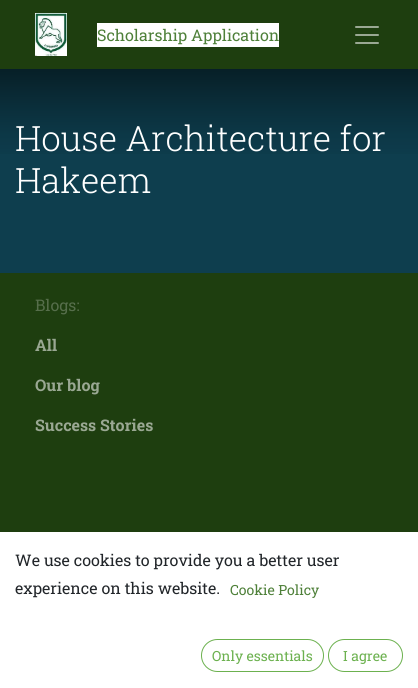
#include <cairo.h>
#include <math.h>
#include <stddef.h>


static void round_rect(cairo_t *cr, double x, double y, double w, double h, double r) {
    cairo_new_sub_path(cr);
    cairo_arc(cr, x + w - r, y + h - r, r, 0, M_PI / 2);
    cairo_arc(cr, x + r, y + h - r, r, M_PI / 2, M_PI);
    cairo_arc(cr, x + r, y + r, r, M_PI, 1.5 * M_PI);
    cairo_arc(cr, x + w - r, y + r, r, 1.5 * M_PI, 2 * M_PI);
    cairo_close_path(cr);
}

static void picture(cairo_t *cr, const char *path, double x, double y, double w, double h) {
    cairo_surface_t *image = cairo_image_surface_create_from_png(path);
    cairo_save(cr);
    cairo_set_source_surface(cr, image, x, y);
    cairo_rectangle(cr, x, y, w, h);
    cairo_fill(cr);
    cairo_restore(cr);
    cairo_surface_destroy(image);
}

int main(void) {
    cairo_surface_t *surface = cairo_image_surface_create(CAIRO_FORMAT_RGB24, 418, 688);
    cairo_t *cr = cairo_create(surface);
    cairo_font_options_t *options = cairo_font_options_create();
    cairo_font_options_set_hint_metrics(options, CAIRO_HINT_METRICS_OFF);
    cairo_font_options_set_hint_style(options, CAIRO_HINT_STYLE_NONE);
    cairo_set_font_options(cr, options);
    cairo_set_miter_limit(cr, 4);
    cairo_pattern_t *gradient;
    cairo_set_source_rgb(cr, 0.055, 0.243, 0.306);
    cairo_paint(cr);
    cairo_set_source_rgb(cr, 0.118, 0.243, 0.059);
    cairo_rectangle(cr, 0, 0, 418, 69);
    cairo_fill(cr);
    picture(cr, "img1.png", 35, 13, 32, 43);
    cairo_set_source_rgb(cr, 1, 1, 1);
    cairo_rectangle(cr, 97, 23, 182, 24);
    cairo_fill(cr);
    cairo_select_font_face(cr, "Roboto Slab", CAIRO_FONT_SLANT_NORMAL, CAIRO_FONT_WEIGHT_NORMAL);
    cairo_set_font_size(cr, 16);
    cairo_set_source_rgb(cr, 0.306, 0.502, 0.224);
    cairo_move_to(cr, 97, 41);
    cairo_show_text(cr, "Scholarship Application");
    picture(cr, "img2.png", 355, 26, 24, 18);
    gradient = cairo_pattern_create_linear(209, 69, 209, 171);
    cairo_pattern_add_color_stop_rgba(gradient, 0, 0.027, 0.122, 0.153, 1);
    cairo_pattern_add_color_stop_rgba(gradient, 0.19, 0.035, 0.153, 0.192, 1);
    cairo_pattern_add_color_stop_rgba(gradient, 0.34, 0.039, 0.176, 0.224, 1);
    cairo_pattern_add_color_stop_rgba(gradient, 0.47, 0.043, 0.196, 0.247, 1);
    cairo_pattern_add_color_stop_rgba(gradient, 0.56, 0.047, 0.208, 0.263, 1);
    cairo_pattern_add_color_stop_rgba(gradient, 0.65, 0.047, 0.22, 0.278, 1);
    cairo_pattern_add_color_stop_rgba(gradient, 0.73, 0.051, 0.224, 0.286, 1);
    cairo_pattern_add_color_stop_rgba(gradient, 0.8, 0.051, 0.231, 0.294, 1);
    cairo_pattern_add_color_stop_rgba(gradient, 0.86, 0.055, 0.239, 0.298, 1);
    cairo_pattern_add_color_stop_rgba(gradient, 0.91, 0.055, 0.239, 0.302, 1);
    cairo_pattern_add_color_stop_rgba(gradient, 0.95, 0.055, 0.243, 0.306, 1);
    cairo_pattern_add_color_stop_rgba(gradient, 1, 0.055, 0.243, 0.306, 1);
    cairo_set_source(cr, gradient);
    cairo_pattern_destroy(gradient);
    cairo_rectangle(cr, 0, 69, 418, 85);
    cairo_fill(cr);
    cairo_select_font_face(cr, "Roboto Slab Light", CAIRO_FONT_SLANT_NORMAL, CAIRO_FONT_WEIGHT_NORMAL);
    cairo_set_font_size(cr, 34.9);
    cairo_set_source_rgb(cr, 1, 1, 1);
    cairo_move_to(cr, 15, 151);
    cairo_show_text(cr, "House Architecture for");
    cairo_move_to(cr, 15, 193);
    cairo_show_text(cr, "Hakeem");
    cairo_set_source_rgb(cr, 0.118, 0.243, 0.059);
    cairo_rectangle(cr, 0, 273, 418, 259);
    cairo_fill(cr);
    cairo_select_font_face(cr, "Roboto Slab", CAIRO_FONT_SLANT_NORMAL, CAIRO_FONT_WEIGHT_NORMAL);
    cairo_set_font_size(cr, 16);
    cairo_set_source_rgb(cr, 0.337, 0.431, 0.294);
    cairo_move_to(cr, 35, 311);
    cairo_show_text(cr, "Blogs:");
    cairo_select_font_face(cr, "Roboto Slab", CAIRO_FONT_SLANT_NORMAL, CAIRO_FONT_WEIGHT_BOLD);
    cairo_set_source_rgb(cr, 0.604, 0.659, 0.576);
    cairo_move_to(cr, 35, 351);
    cairo_show_text(cr, "All");
    cairo_move_to(cr, 35, 391);
    cairo_show_text(cr, "Our blog");
    cairo_move_to(cr, 35, 431);
    cairo_show_text(cr, "Success Stories");
    cairo_set_source_rgb(cr, 1, 1, 1);
    cairo_rectangle(cr, 0, 532, 418, 156);
    cairo_fill(cr);
    cairo_select_font_face(cr, "Roboto Slab", CAIRO_FONT_SLANT_NORMAL, CAIRO_FONT_WEIGHT_NORMAL);
    cairo_set_source_rgb(cr, 0.129, 0.145, 0.161);
    cairo_move_to(cr, 15, 566);
    cairo_show_text(cr, "We use cookies to provide you a better user");
    cairo_move_to(cr, 15, 594);
    cairo_show_text(cr, "experience on this website.");
    cairo_set_font_size(cr, 14);
    cairo_set_source_rgb(cr, 0.306, 0.502, 0.224);
    cairo_move_to(cr, 230, 595);
    cairo_show_text(cr, "Cookie Policy");
    round_rect(cr, 201.5, 639.5, 122, 32, 16);
    cairo_set_source_rgb(cr, 0.424, 0.694, 0.31);
    cairo_set_line_width(cr, 1);
    cairo_stroke(cr);
    cairo_move_to(cr, 212, 661);
    cairo_show_text(cr, "Only essentials");
    round_rect(cr, 328.5, 639.5, 74, 32, 16);
    cairo_stroke(cr);
    cairo_move_to(cr, 343, 661);
    cairo_show_text(cr, "I agree");
    cairo_surface_write_to_png(surface, "page.png");
    cairo_font_options_destroy(options);
    cairo_destroy(cr);
    cairo_surface_destroy(surface);
    return 0;
}
